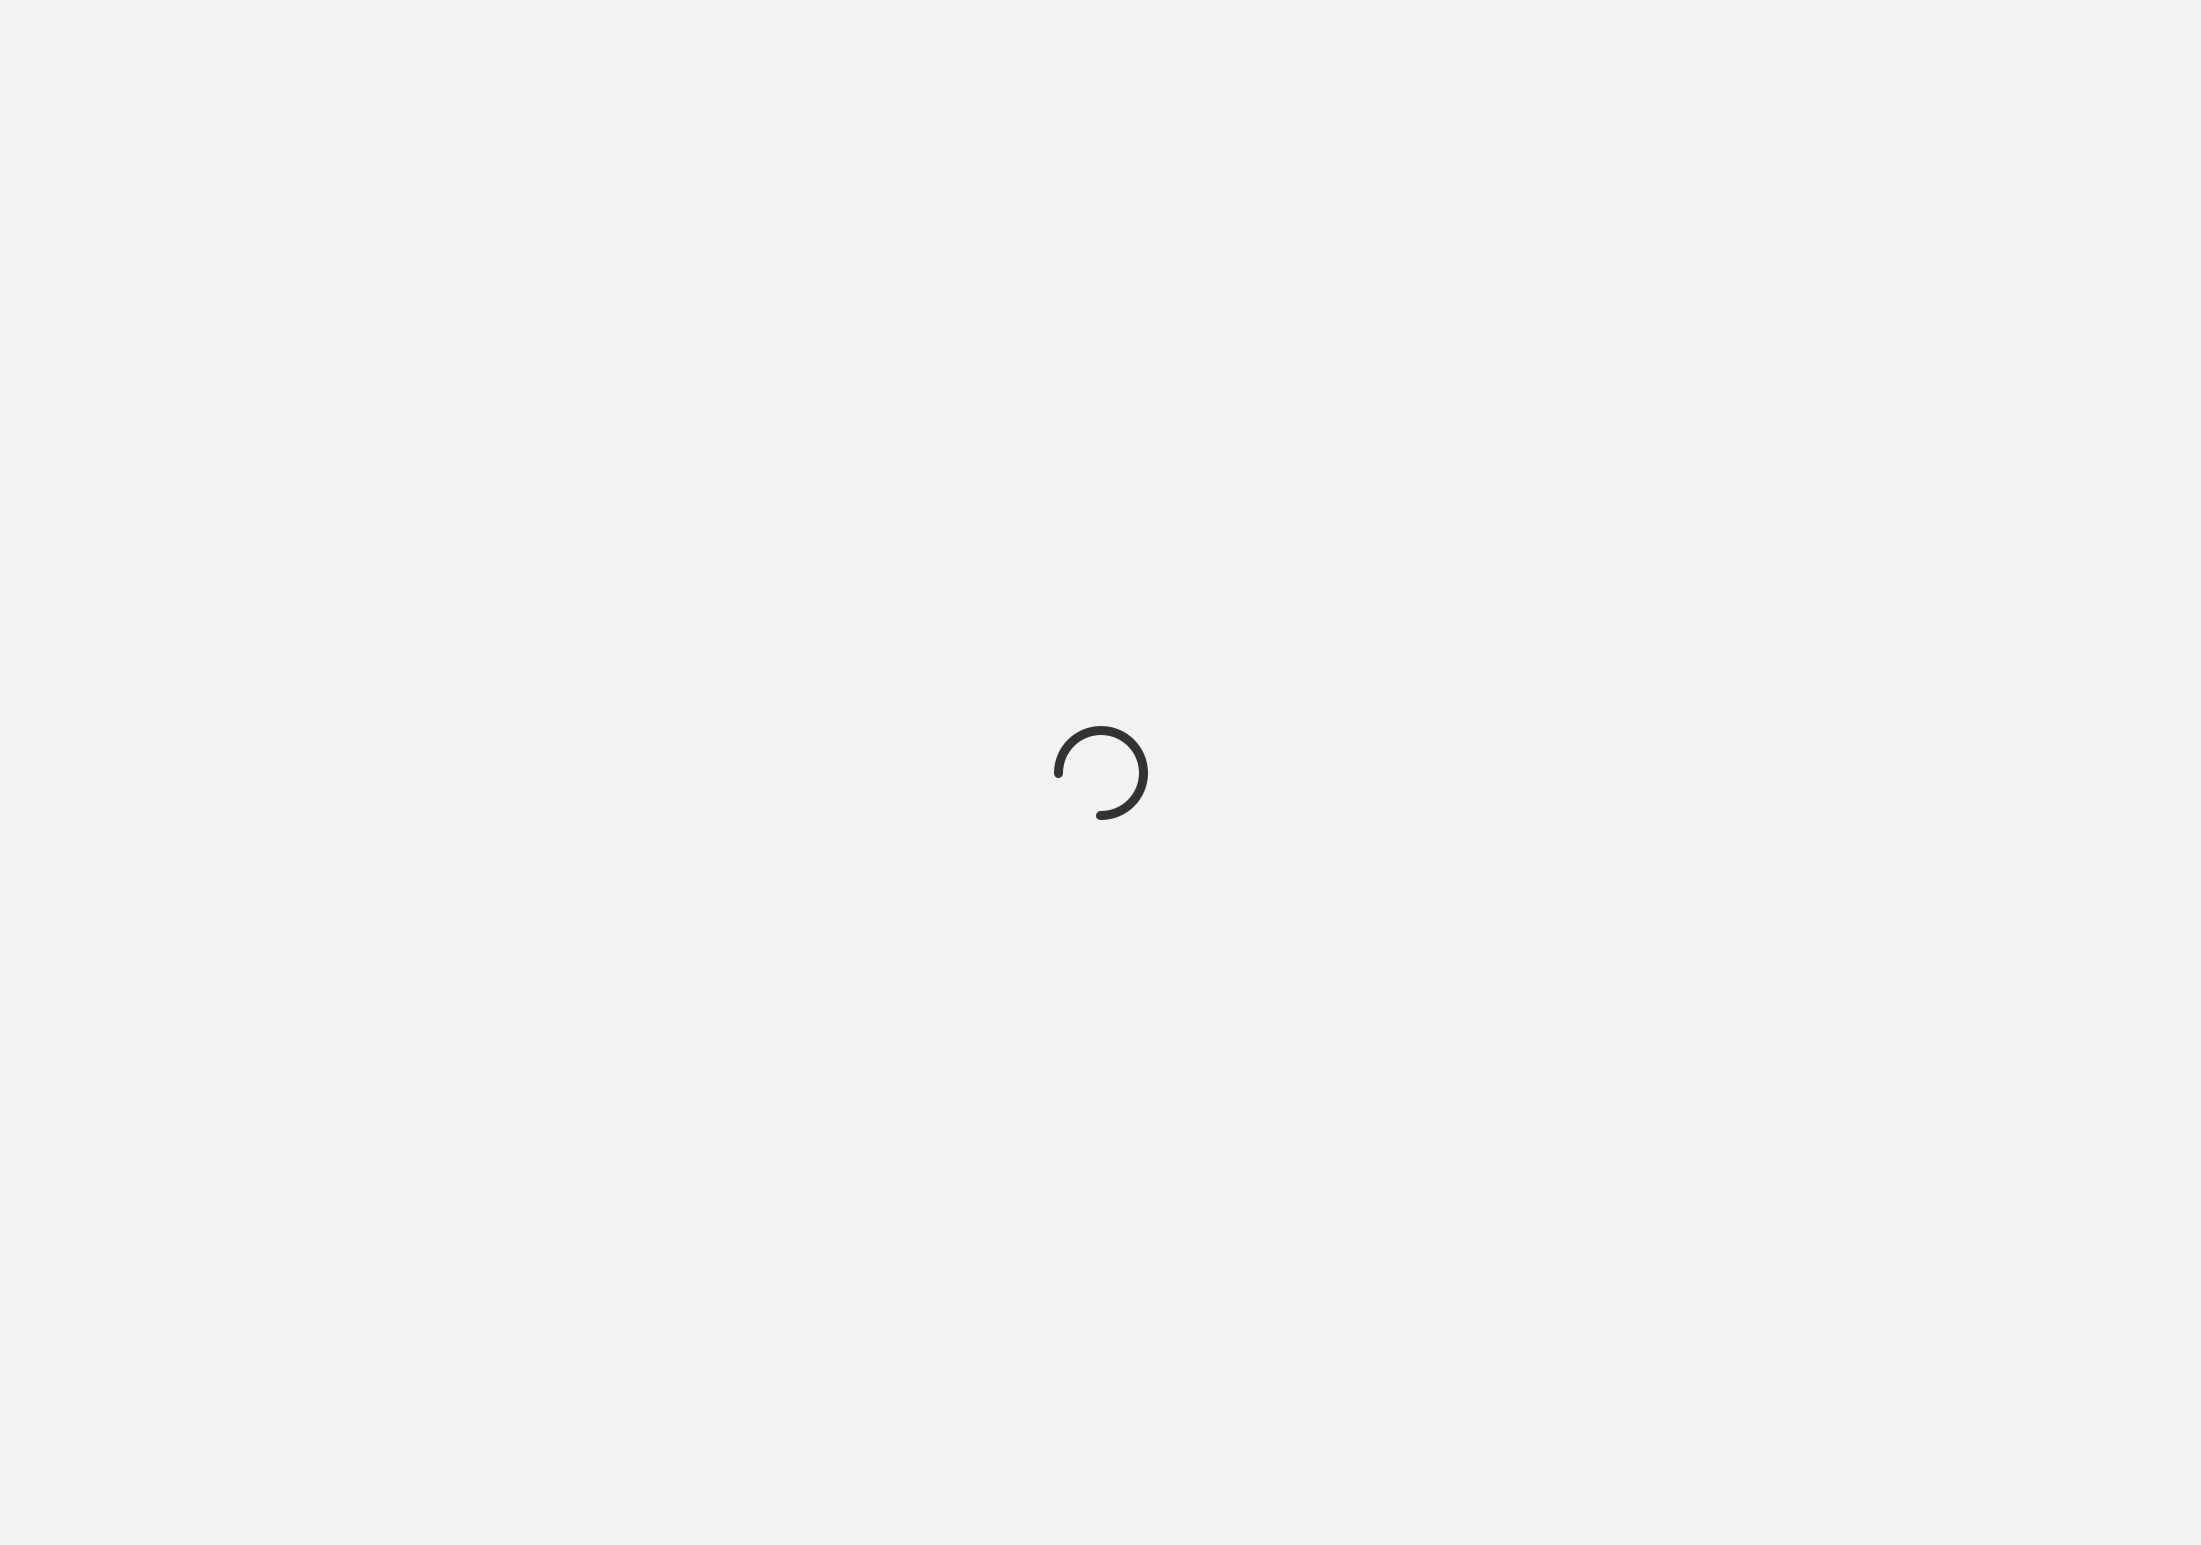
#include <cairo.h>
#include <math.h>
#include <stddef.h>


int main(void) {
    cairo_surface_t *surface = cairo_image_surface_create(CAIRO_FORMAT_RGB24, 2201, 1545);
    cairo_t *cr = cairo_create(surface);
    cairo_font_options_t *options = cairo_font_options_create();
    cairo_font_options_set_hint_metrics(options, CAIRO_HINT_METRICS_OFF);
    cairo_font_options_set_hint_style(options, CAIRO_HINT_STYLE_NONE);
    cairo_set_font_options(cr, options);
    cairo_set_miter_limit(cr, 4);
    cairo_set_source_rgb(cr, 0.949, 0.949, 0.949);
    cairo_paint(cr);
    cairo_set_source_rgb(cr, 0.2, 0.2, 0.2);
    cairo_new_path(cr);
    cairo_move_to(cr, 1101, 735);
    cairo_curve_to(cr, 1080, 735, 1063, 752, 1063, 773);
    cairo_curve_to(cr, 1063, 776, 1061, 778, 1058, 778);
    cairo_curve_to(cr, 1056, 778, 1054, 776, 1054, 773);
    cairo_curve_to(cr, 1054, 747, 1075, 726, 1101, 726);
    cairo_curve_to(cr, 1127, 726, 1148, 747, 1148, 773);
    cairo_curve_to(cr, 1148, 799, 1127, 820, 1101, 820);
    cairo_curve_to(cr, 1098, 820, 1096, 818, 1096, 816);
    cairo_curve_to(cr, 1096, 813, 1098, 811, 1101, 811);
    cairo_curve_to(cr, 1122, 811, 1139, 794, 1139, 773);
    cairo_curve_to(cr, 1139, 752, 1122, 735, 1101, 735);
    cairo_close_path(cr);
    cairo_fill(cr);
    cairo_surface_write_to_png(surface, "page.png");
    cairo_font_options_destroy(options);
    cairo_destroy(cr);
    cairo_surface_destroy(surface);
    return 0;
}
